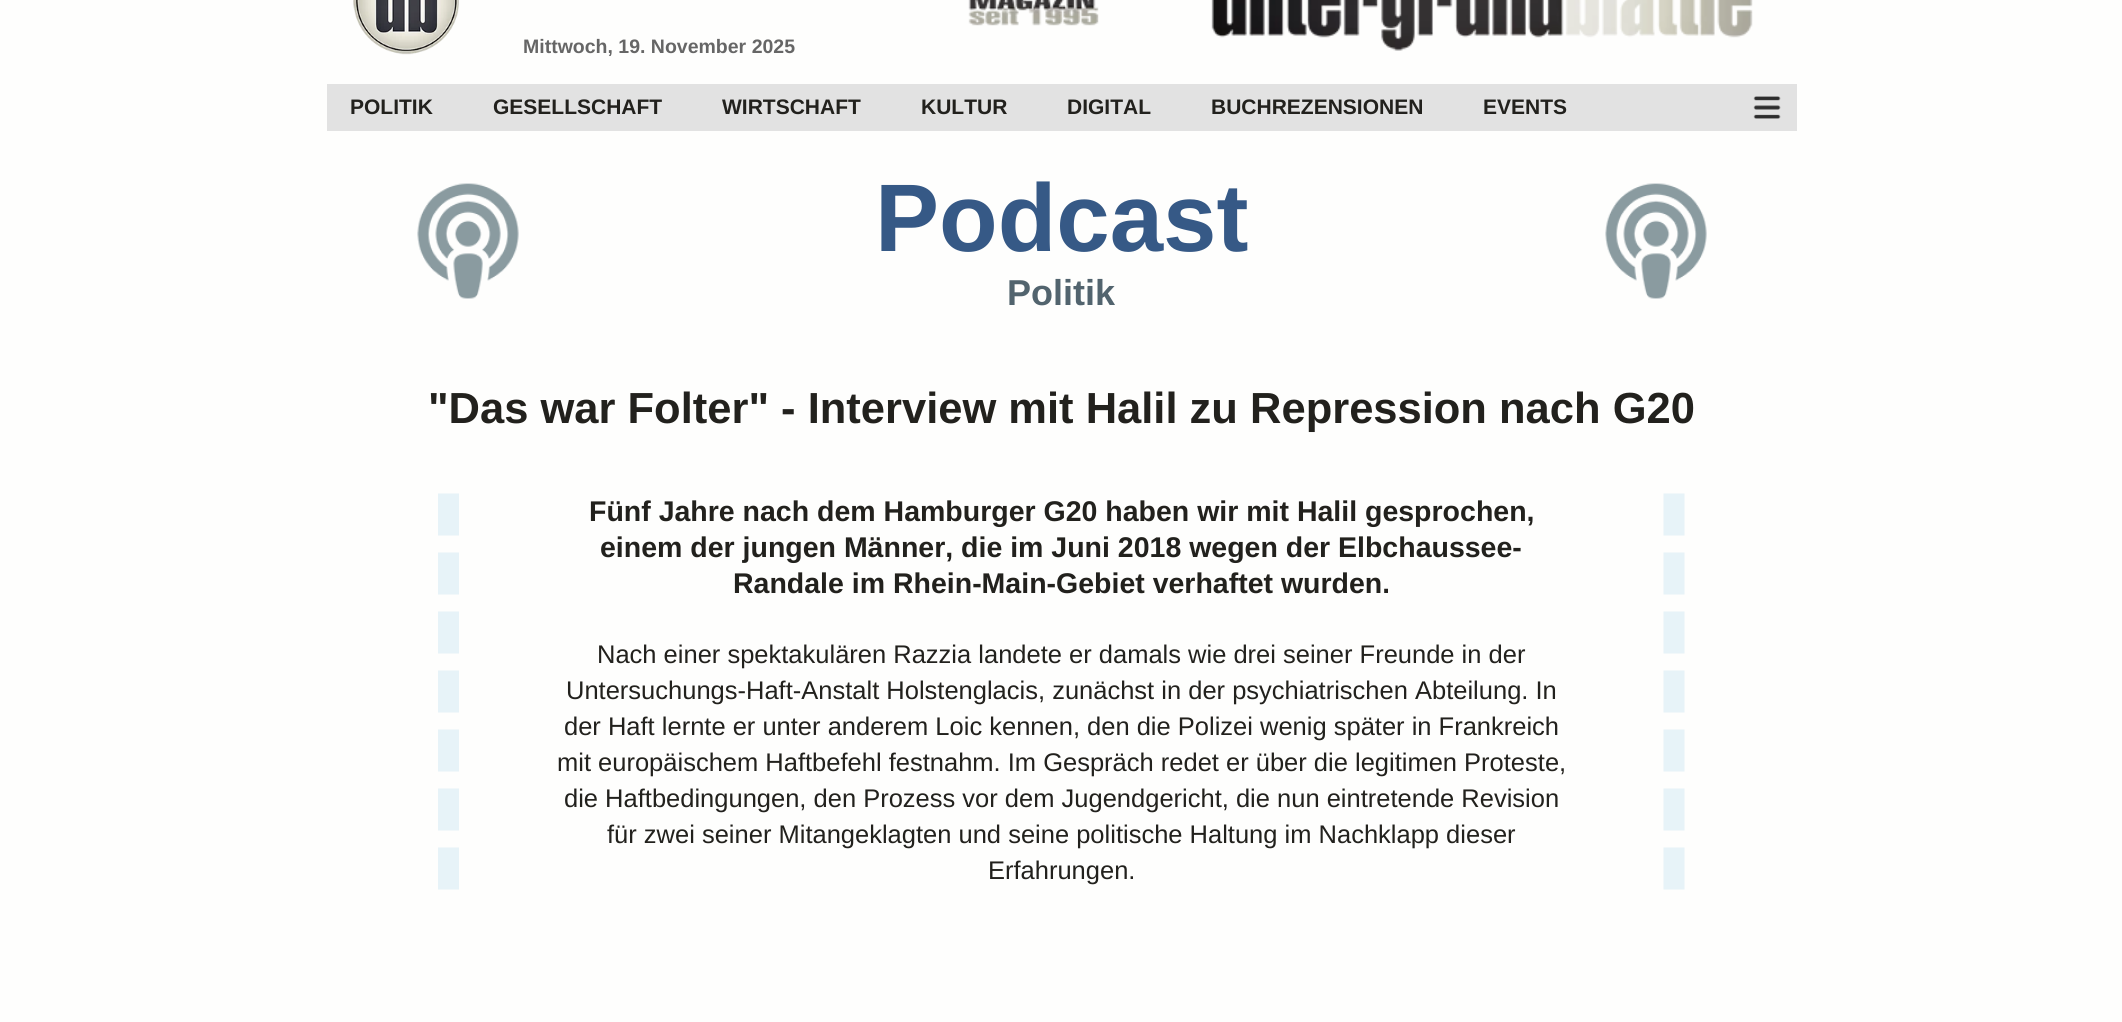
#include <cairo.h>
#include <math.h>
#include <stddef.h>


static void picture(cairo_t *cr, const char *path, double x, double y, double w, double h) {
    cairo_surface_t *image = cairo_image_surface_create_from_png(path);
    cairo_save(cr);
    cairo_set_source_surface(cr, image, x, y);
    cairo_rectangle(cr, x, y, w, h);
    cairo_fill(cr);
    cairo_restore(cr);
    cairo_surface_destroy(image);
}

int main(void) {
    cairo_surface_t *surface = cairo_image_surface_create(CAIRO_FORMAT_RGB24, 2122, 1022);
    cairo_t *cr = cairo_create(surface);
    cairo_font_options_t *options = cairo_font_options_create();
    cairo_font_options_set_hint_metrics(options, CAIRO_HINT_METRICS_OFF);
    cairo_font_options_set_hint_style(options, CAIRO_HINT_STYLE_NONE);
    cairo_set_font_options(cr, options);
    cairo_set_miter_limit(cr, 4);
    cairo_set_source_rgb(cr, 0.996, 0.996, 0.992);
    cairo_paint(cr);
    picture(cr, "img1.png", 353, 0, 106, 55);
    cairo_select_font_face(cr, "Liberation Sans", CAIRO_FONT_SLANT_NORMAL, CAIRO_FONT_WEIGHT_BOLD);
    cairo_set_font_size(cr, 19.5);
    cairo_set_source_rgb(cr, 0.4, 0.4, 0.4);
    cairo_move_to(cr, 523, 53);
    cairo_show_text(cr, "Mittwoch, 19. November 2025");
    picture(cr, "img2.png", 968, 0, 131, 26);
    picture(cr, "img3.png", 1211, 0, 542, 51);
    cairo_set_source_rgb(cr, 0.886, 0.886, 0.886);
    cairo_rectangle(cr, 327, 84, 1470, 47);
    cairo_fill(cr);
    cairo_set_font_size(cr, 21);
    cairo_set_source_rgb(cr, 0.133, 0.129, 0.114);
    cairo_move_to(cr, 350, 114);
    cairo_show_text(cr, "POLITIK");
    cairo_move_to(cr, 493, 114);
    cairo_show_text(cr, "GESELLSCHAFT");
    cairo_move_to(cr, 722, 114);
    cairo_show_text(cr, "WIRTSCHAFT");
    cairo_move_to(cr, 921, 114);
    cairo_show_text(cr, "KULTUR");
    cairo_move_to(cr, 1067, 114);
    cairo_show_text(cr, "DIGITAL");
    cairo_move_to(cr, 1211, 114);
    cairo_show_text(cr, "BUCHREZENSIONEN");
    cairo_move_to(cr, 1483, 114);
    cairo_show_text(cr, "EVENTS");
    picture(cr, "img4.png", 1753, 96, 28, 23);
    picture(cr, "img5.png", 417, 183, 102, 116);
    cairo_set_font_size(cr, 96);
    cairo_set_source_rgb(cr, 0.212, 0.349, 0.525);
    cairo_move_to(cr, 875, 251);
    cairo_show_text(cr, "Podcast");
    cairo_set_font_size(cr, 36);
    cairo_set_source_rgb(cr, 0.322, 0.392, 0.431);
    cairo_move_to(cr, 1007, 305);
    cairo_show_text(cr, "Politik");
    picture(cr, "img6.png", 1605, 183, 102, 116);
    cairo_set_font_size(cr, 43.5);
    cairo_set_source_rgb(cr, 0.133, 0.129, 0.114);
    cairo_move_to(cr, 428, 423);
    cairo_show_text(cr, "\"Das war Folter\" - Interview mit Halil zu Repression nach G20");
    cairo_new_path(cr);
    cairo_move_to(cr, 1674, 493.5);
    cairo_line_to(cr, 1674, 889.5);
    cairo_set_source_rgb(cr, 0.906, 0.953, 0.969);
    cairo_set_line_width(cr, 21);
    cairo_set_dash(cr, (double[]){42, 17}, 2, 0);
    cairo_stroke(cr);
    cairo_new_path(cr);
    cairo_move_to(cr, 448.5, 493.5);
    cairo_line_to(cr, 448.5, 889.5);
    cairo_stroke(cr);
    cairo_set_font_size(cr, 28.5);
    cairo_set_source_rgb(cr, 0.133, 0.129, 0.114);
    cairo_move_to(cr, 589, 521);
    cairo_show_text(cr, "Fünf Jahre nach dem Hamburger G20 haben wir mit Halil gesprochen,");
    cairo_move_to(cr, 600, 557);
    cairo_show_text(cr, "einem der jungen Männer, die im Juni 2018 wegen der Elbchaussee-");
    cairo_move_to(cr, 733, 593);
    cairo_show_text(cr, "Randale im Rhein-Main-Gebiet verhaftet wurden.");
    cairo_select_font_face(cr, "Liberation Sans", CAIRO_FONT_SLANT_NORMAL, CAIRO_FONT_WEIGHT_NORMAL);
    cairo_set_font_size(cr, 25.5);
    cairo_move_to(cr, 597, 663);
    cairo_show_text(cr, "Nach einer spektakulären Razzia landete er damals wie drei seiner Freunde in der");
    cairo_move_to(cr, 566, 699);
    cairo_show_text(cr, "Untersuchungs-Haft-Anstalt Holstenglacis, zunächst in der psychiatrischen Abteilung. In");
    cairo_move_to(cr, 564, 735);
    cairo_show_text(cr, "der Haft lernte er unter anderem Loic kennen, den die Polizei wenig später in Frankreich");
    cairo_move_to(cr, 557, 771);
    cairo_show_text(cr, "mit europäischem Haftbefehl festnahm. Im Gespräch redet er über die legitimen Proteste,");
    cairo_move_to(cr, 564, 807);
    cairo_show_text(cr, "die Haftbedingungen, den Prozess vor dem Jugendgericht, die nun eintretende Revision");
    cairo_move_to(cr, 607, 843);
    cairo_show_text(cr, "für zwei seiner Mitangeklagten und seine politische Haltung im Nachklapp dieser");
    cairo_move_to(cr, 988, 879);
    cairo_show_text(cr, "Erfahrungen.");
    cairo_surface_write_to_png(surface, "page.png");
    cairo_font_options_destroy(options);
    cairo_destroy(cr);
    cairo_surface_destroy(surface);
    return 0;
}
